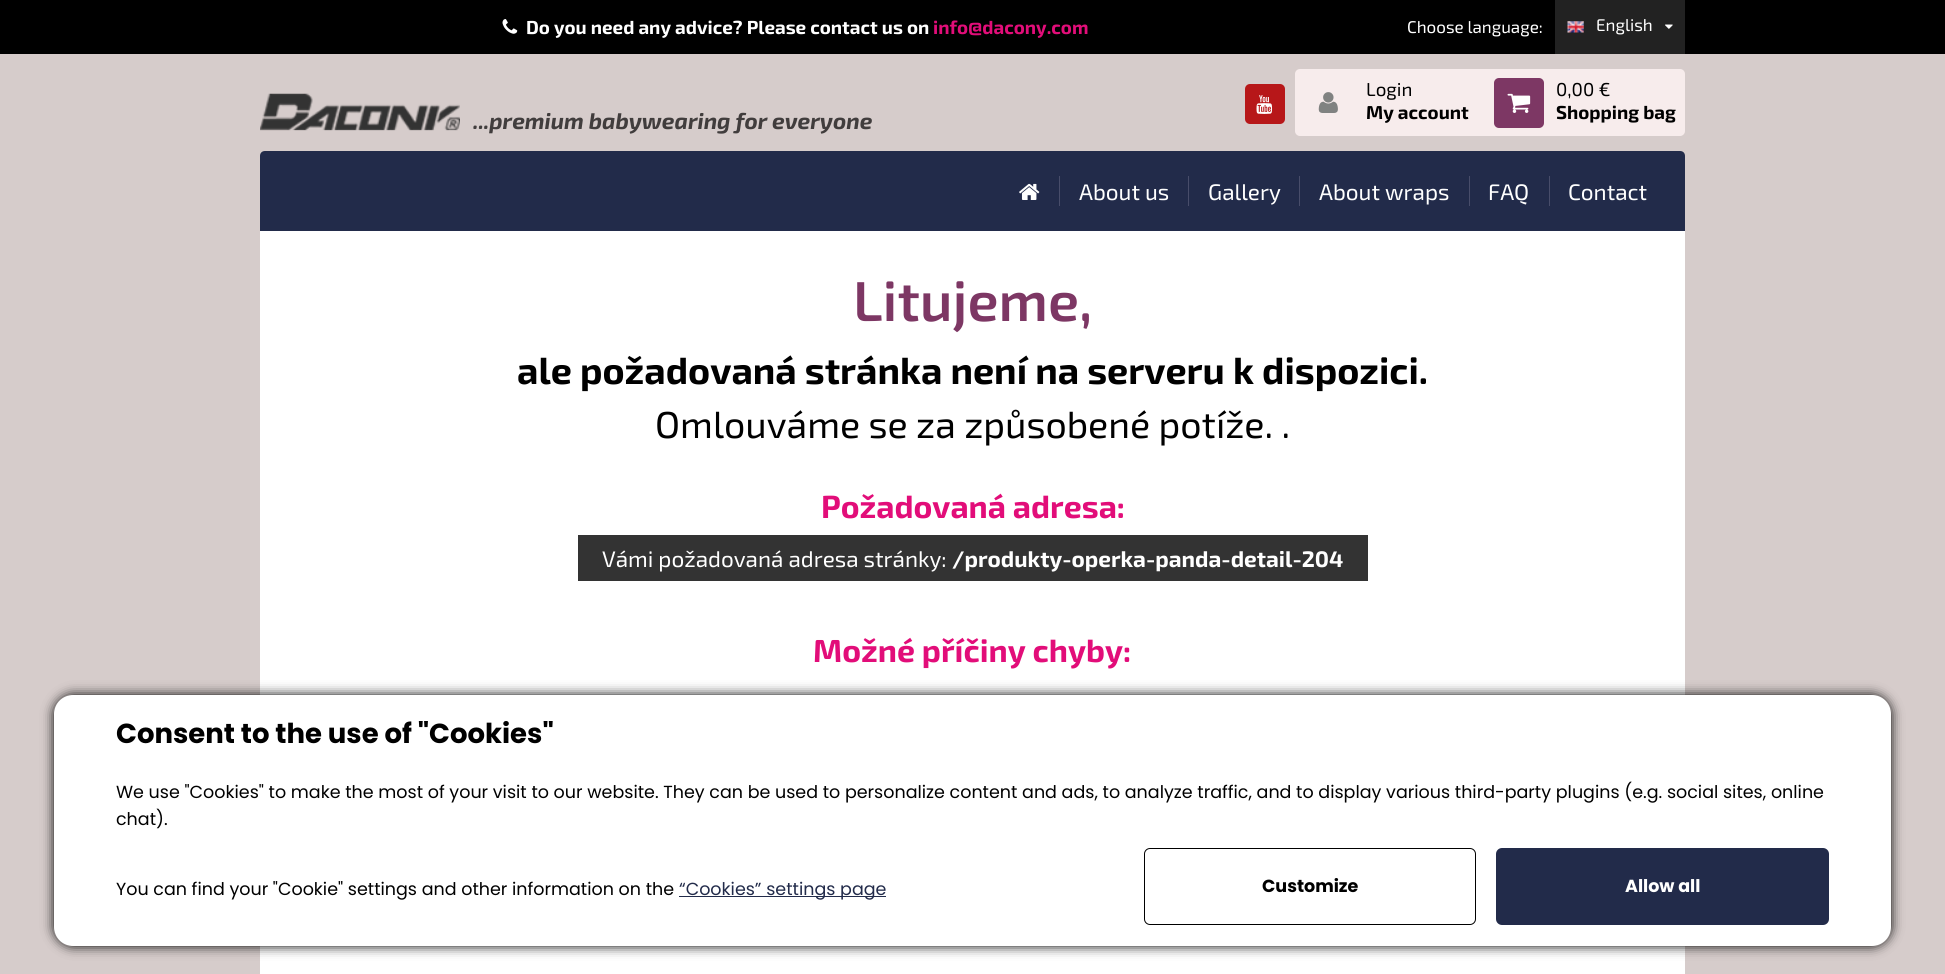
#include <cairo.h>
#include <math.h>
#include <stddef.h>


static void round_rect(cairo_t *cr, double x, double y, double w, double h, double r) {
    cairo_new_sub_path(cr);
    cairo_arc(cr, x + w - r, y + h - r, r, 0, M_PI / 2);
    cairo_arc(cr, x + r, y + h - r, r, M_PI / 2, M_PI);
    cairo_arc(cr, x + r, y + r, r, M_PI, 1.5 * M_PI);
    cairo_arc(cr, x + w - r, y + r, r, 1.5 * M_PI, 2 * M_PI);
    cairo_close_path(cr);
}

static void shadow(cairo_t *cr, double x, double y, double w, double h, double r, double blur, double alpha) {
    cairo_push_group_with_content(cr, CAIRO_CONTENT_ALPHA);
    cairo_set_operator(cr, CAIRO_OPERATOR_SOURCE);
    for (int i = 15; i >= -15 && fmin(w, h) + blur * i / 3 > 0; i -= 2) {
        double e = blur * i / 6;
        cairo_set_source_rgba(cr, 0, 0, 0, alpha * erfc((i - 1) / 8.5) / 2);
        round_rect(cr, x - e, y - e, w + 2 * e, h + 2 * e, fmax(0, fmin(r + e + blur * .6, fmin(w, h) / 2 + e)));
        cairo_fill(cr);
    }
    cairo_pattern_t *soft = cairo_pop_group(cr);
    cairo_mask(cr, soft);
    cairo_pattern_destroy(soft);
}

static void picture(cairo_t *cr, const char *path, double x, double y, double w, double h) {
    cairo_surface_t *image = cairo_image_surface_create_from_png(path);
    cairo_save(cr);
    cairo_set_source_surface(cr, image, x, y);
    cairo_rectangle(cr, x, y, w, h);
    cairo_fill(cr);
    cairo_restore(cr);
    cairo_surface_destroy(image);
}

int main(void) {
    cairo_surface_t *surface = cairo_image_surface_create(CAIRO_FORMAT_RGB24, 1945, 974);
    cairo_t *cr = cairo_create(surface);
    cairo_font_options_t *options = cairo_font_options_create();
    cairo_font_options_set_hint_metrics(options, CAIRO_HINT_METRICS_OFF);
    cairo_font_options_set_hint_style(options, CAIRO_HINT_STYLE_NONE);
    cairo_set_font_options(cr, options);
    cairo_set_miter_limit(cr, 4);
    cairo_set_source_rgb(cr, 0.839, 0.8, 0.796);
    cairo_paint(cr);
    cairo_set_source_rgb(cr, 0, 0, 0);
    cairo_rectangle(cr, 0, 0, 1945, 54);
    cairo_fill(cr);
    picture(cr, "img1.png", 502, 19, 16, 15);
    cairo_select_font_face(cr, "Exo 2", CAIRO_FONT_SLANT_NORMAL, CAIRO_FONT_WEIGHT_BOLD);
    cairo_set_font_size(cr, 18.75);
    cairo_set_source_rgb(cr, 1, 1, 1);
    cairo_move_to(cr, 526, 34);
    cairo_show_text(cr, "Do you need any advice? Please contact us on");
    cairo_set_source_rgb(cr, 0.886, 0.051, 0.475);
    cairo_move_to(cr, 933, 34);
    cairo_show_text(cr, "info@dacony.com");
    cairo_select_font_face(cr, "Exo 2", CAIRO_FONT_SLANT_NORMAL, CAIRO_FONT_WEIGHT_NORMAL);
    cairo_set_font_size(cr, 17);
    cairo_set_source_rgb(cr, 1, 1, 1);
    cairo_move_to(cr, 1407, 33);
    cairo_show_text(cr, "Choose language:");
    cairo_set_source_rgb(cr, 0.133, 0.133, 0.133);
    cairo_rectangle(cr, 1555, 0, 130, 54);
    cairo_fill(cr);
    picture(cr, "img2.png", 1567, 21, 17, 12);
    cairo_set_source_rgb(cr, 1, 1, 1);
    cairo_move_to(cr, 1596, 31);
    cairo_show_text(cr, "English");
    picture(cr, "img3.png", 1665, 24, 8, 5);
    picture(cr, "img4.png", 260, 93, 200, 38);
    cairo_select_font_face(cr, "Exo 2", CAIRO_FONT_SLANT_ITALIC, CAIRO_FONT_WEIGHT_BOLD);
    cairo_set_font_size(cr, 22.5);
    cairo_set_source_rgb(cr, 0.255, 0.239, 0.239);
    cairo_move_to(cr, 473, 129);
    cairo_show_text(cr, "...premium babywearing for everyone");
    cairo_set_source_rgb(cr, 0.718, 0.09, 0.098);
    round_rect(cr, 1245, 84, 40, 40, 5);
    cairo_fill(cr);
    picture(cr, "img5.png", 1256, 95, 17, 19);
    cairo_set_source_rgb(cr, 0.965, 0.925, 0.922);
    round_rect(cr, 1295, 69, 390, 67, 5);
    cairo_fill(cr);
    picture(cr, "img6.png", 1318, 92, 20, 21);
    cairo_select_font_face(cr, "Exo 2", CAIRO_FONT_SLANT_NORMAL, CAIRO_FONT_WEIGHT_NORMAL);
    cairo_set_font_size(cr, 18.75);
    cairo_set_source_rgb(cr, 0, 0, 0);
    cairo_move_to(cr, 1366, 96);
    cairo_show_text(cr, "Login");
    cairo_select_font_face(cr, "Exo 2", CAIRO_FONT_SLANT_NORMAL, CAIRO_FONT_WEIGHT_BOLD);
    cairo_move_to(cr, 1366, 119);
    cairo_show_text(cr, "My account");
    cairo_set_source_rgb(cr, 0.49, 0.216, 0.392);
    round_rect(cr, 1494, 78, 50, 50, 5);
    cairo_fill(cr);
    picture(cr, "img7.png", 1507, 93, 24, 20);
    cairo_select_font_face(cr, "Exo 2", CAIRO_FONT_SLANT_NORMAL, CAIRO_FONT_WEIGHT_NORMAL);
    cairo_set_source_rgb(cr, 0, 0, 0);
    cairo_move_to(cr, 1556, 96);
    cairo_show_text(cr, "0,00 €");
    cairo_select_font_face(cr, "Exo 2", CAIRO_FONT_SLANT_NORMAL, CAIRO_FONT_WEIGHT_BOLD);
    cairo_move_to(cr, 1556, 119);
    cairo_show_text(cr, "Shopping bag");
    cairo_set_source_rgb(cr, 0.133, 0.169, 0.29);
    cairo_new_path(cr);
    cairo_move_to(cr, 265, 151);
    cairo_line_to(cr, 1680, 151);
    cairo_curve_to(cr, 1683, 151, 1685, 153, 1685, 156);
    cairo_line_to(cr, 1685, 231);
    cairo_line_to(cr, 260, 231);
    cairo_line_to(cr, 260, 156);
    cairo_curve_to(cr, 260, 153, 262, 151, 265, 151);
    cairo_close_path(cr);
    cairo_fill(cr);
    picture(cr, "img8.png", 1019, 183, 21, 17);
    cairo_set_source_rgb(cr, 0.282, 0.302, 0.416);
    cairo_rectangle(cr, 1059, 176, 1, 30);
    cairo_fill(cr);
    cairo_select_font_face(cr, "Exo 2", CAIRO_FONT_SLANT_NORMAL, CAIRO_FONT_WEIGHT_NORMAL);
    cairo_set_font_size(cr, 22.5);
    cairo_set_source_rgb(cr, 1, 1, 1);
    cairo_move_to(cr, 1079, 200);
    cairo_show_text(cr, "About us");
    cairo_set_source_rgb(cr, 0.282, 0.302, 0.416);
    cairo_rectangle(cr, 1188, 176, 1, 30);
    cairo_fill(cr);
    cairo_set_source_rgb(cr, 1, 1, 1);
    cairo_move_to(cr, 1208, 200);
    cairo_show_text(cr, "Gallery");
    cairo_set_source_rgb(cr, 0.282, 0.302, 0.416);
    cairo_rectangle(cr, 1299, 176, 1, 30);
    cairo_fill(cr);
    cairo_set_source_rgb(cr, 1, 1, 1);
    cairo_move_to(cr, 1319, 200);
    cairo_show_text(cr, "About wraps");
    cairo_set_source_rgb(cr, 0.282, 0.302, 0.416);
    cairo_rectangle(cr, 1469, 176, 1, 30);
    cairo_fill(cr);
    cairo_set_source_rgb(cr, 1, 1, 1);
    cairo_move_to(cr, 1488, 200);
    cairo_show_text(cr, "FAQ");
    cairo_set_source_rgb(cr, 0.282, 0.302, 0.416);
    cairo_rectangle(cr, 1549, 176, 1, 30);
    cairo_fill(cr);
    cairo_set_source_rgb(cr, 1, 1, 1);
    cairo_move_to(cr, 1568, 200);
    cairo_show_text(cr, "Contact");
    cairo_rectangle(cr, 260, 231, 1425, 464);
    cairo_fill(cr);
    cairo_select_font_face(cr, "Exo 2 SemiBold", CAIRO_FONT_SLANT_NORMAL, CAIRO_FONT_WEIGHT_NORMAL);
    cairo_set_font_size(cr, 56.25);
    cairo_set_source_rgb(cr, 0.49, 0.216, 0.392);
    cairo_move_to(cr, 853, 321);
    cairo_show_text(cr, "Litujeme,");
    cairo_select_font_face(cr, "Exo 2", CAIRO_FONT_SLANT_NORMAL, CAIRO_FONT_WEIGHT_BOLD);
    cairo_set_font_size(cr, 37.5);
    cairo_set_source_rgb(cr, 0, 0, 0);
    cairo_move_to(cr, 517, 384);
    cairo_show_text(cr, "ale požadovaná stránka není na serveru k dispozici.");
    cairo_select_font_face(cr, "Exo 2", CAIRO_FONT_SLANT_NORMAL, CAIRO_FONT_WEIGHT_NORMAL);
    cairo_move_to(cr, 655, 438);
    cairo_show_text(cr, "Omlouváme se za způsobené potíže. .");
    cairo_select_font_face(cr, "Exo 2", CAIRO_FONT_SLANT_NORMAL, CAIRO_FONT_WEIGHT_BOLD);
    cairo_set_font_size(cr, 31.9);
    cairo_set_source_rgb(cr, 0.886, 0.051, 0.475);
    cairo_move_to(cr, 821, 518);
    cairo_show_text(cr, "Požadovaná adresa:");
    cairo_set_source_rgb(cr, 0.2, 0.2, 0.2);
    cairo_rectangle(cr, 578, 535, 790, 46);
    cairo_fill(cr);
    cairo_select_font_face(cr, "Exo 2", CAIRO_FONT_SLANT_NORMAL, CAIRO_FONT_WEIGHT_NORMAL);
    cairo_set_font_size(cr, 22.5);
    cairo_set_source_rgb(cr, 1, 1, 1);
    cairo_move_to(cr, 602, 567);
    cairo_show_text(cr, "Vámi požadovaná adresa stránky:");
    cairo_select_font_face(cr, "Exo 2", CAIRO_FONT_SLANT_NORMAL, CAIRO_FONT_WEIGHT_BOLD);
    cairo_move_to(cr, 952, 567);
    cairo_show_text(cr, "/produkty-operka-panda-detail-204");
    cairo_set_font_size(cr, 31.9);
    cairo_set_source_rgb(cr, 0.886, 0.051, 0.475);
    cairo_move_to(cr, 813, 662);
    cairo_show_text(cr, "Možné příčiny chyby:");
    cairo_set_source_rgb(cr, 1, 1, 1);
    cairo_rectangle(cr, 260, 946, 1425, 28);
    cairo_fill(cr);
    cairo_set_source_rgb(cr, 0, 0, 0);
    shadow(cr, 54, 695, 1837, 251, 19, 6, 1);
    cairo_set_source_rgb(cr, 1, 1, 1);
    round_rect(cr, 54, 695, 1837, 251, 19);
    cairo_fill(cr);
    cairo_select_font_face(cr, "Poppins", CAIRO_FONT_SLANT_NORMAL, CAIRO_FONT_WEIGHT_BOLD);
    cairo_set_font_size(cr, 27.5);
    cairo_set_source_rgb(cr, 0, 0, 0);
    cairo_move_to(cr, 116, 743);
    cairo_show_text(cr, "Consent to the use of \"Cookies\"");
    cairo_select_font_face(cr, "Poppins", CAIRO_FONT_SLANT_NORMAL, CAIRO_FONT_WEIGHT_NORMAL);
    cairo_set_font_size(cr, 17.5);
    cairo_move_to(cr, 116, 798);
    cairo_show_text(cr, "We use \"Cookies\" to make the most of your visit to our website. They can be used to personalize content and ads, to analyze traffic, and to display various third-party plugins (e.g. social sites, online");
    cairo_move_to(cr, 116, 825);
    cairo_show_text(cr, "chat).");
    cairo_move_to(cr, 116, 895);
    cairo_show_text(cr, "You can find your \"Cookie\" settings and other information on the");
    cairo_set_source_rgb(cr, 0.133, 0.169, 0.29);
    cairo_rectangle(cr, 679, 896, 207, 1);
    cairo_fill(cr);
    cairo_move_to(cr, 679, 895);
    cairo_show_text(cr, "“Cookies” settings page");
    round_rect(cr, 1144.5, 848.5, 331, 76, 5.5);
    cairo_set_source_rgb(cr, 0, 0, 0);
    cairo_set_line_width(cr, 1);
    cairo_stroke(cr);
    cairo_select_font_face(cr, "Poppins", CAIRO_FONT_SLANT_NORMAL, CAIRO_FONT_WEIGHT_BOLD);
    cairo_move_to(cr, 1262, 892);
    cairo_show_text(cr, "Customize");
    cairo_set_source_rgb(cr, 0.133, 0.169, 0.29);
    round_rect(cr, 1496, 848, 333, 77, 6);
    cairo_fill(cr);
    cairo_set_source_rgb(cr, 1, 1, 1);
    cairo_move_to(cr, 1625, 892);
    cairo_show_text(cr, "Allow all");
    cairo_surface_write_to_png(surface, "page.png");
    cairo_font_options_destroy(options);
    cairo_destroy(cr);
    cairo_surface_destroy(surface);
    return 0;
}
